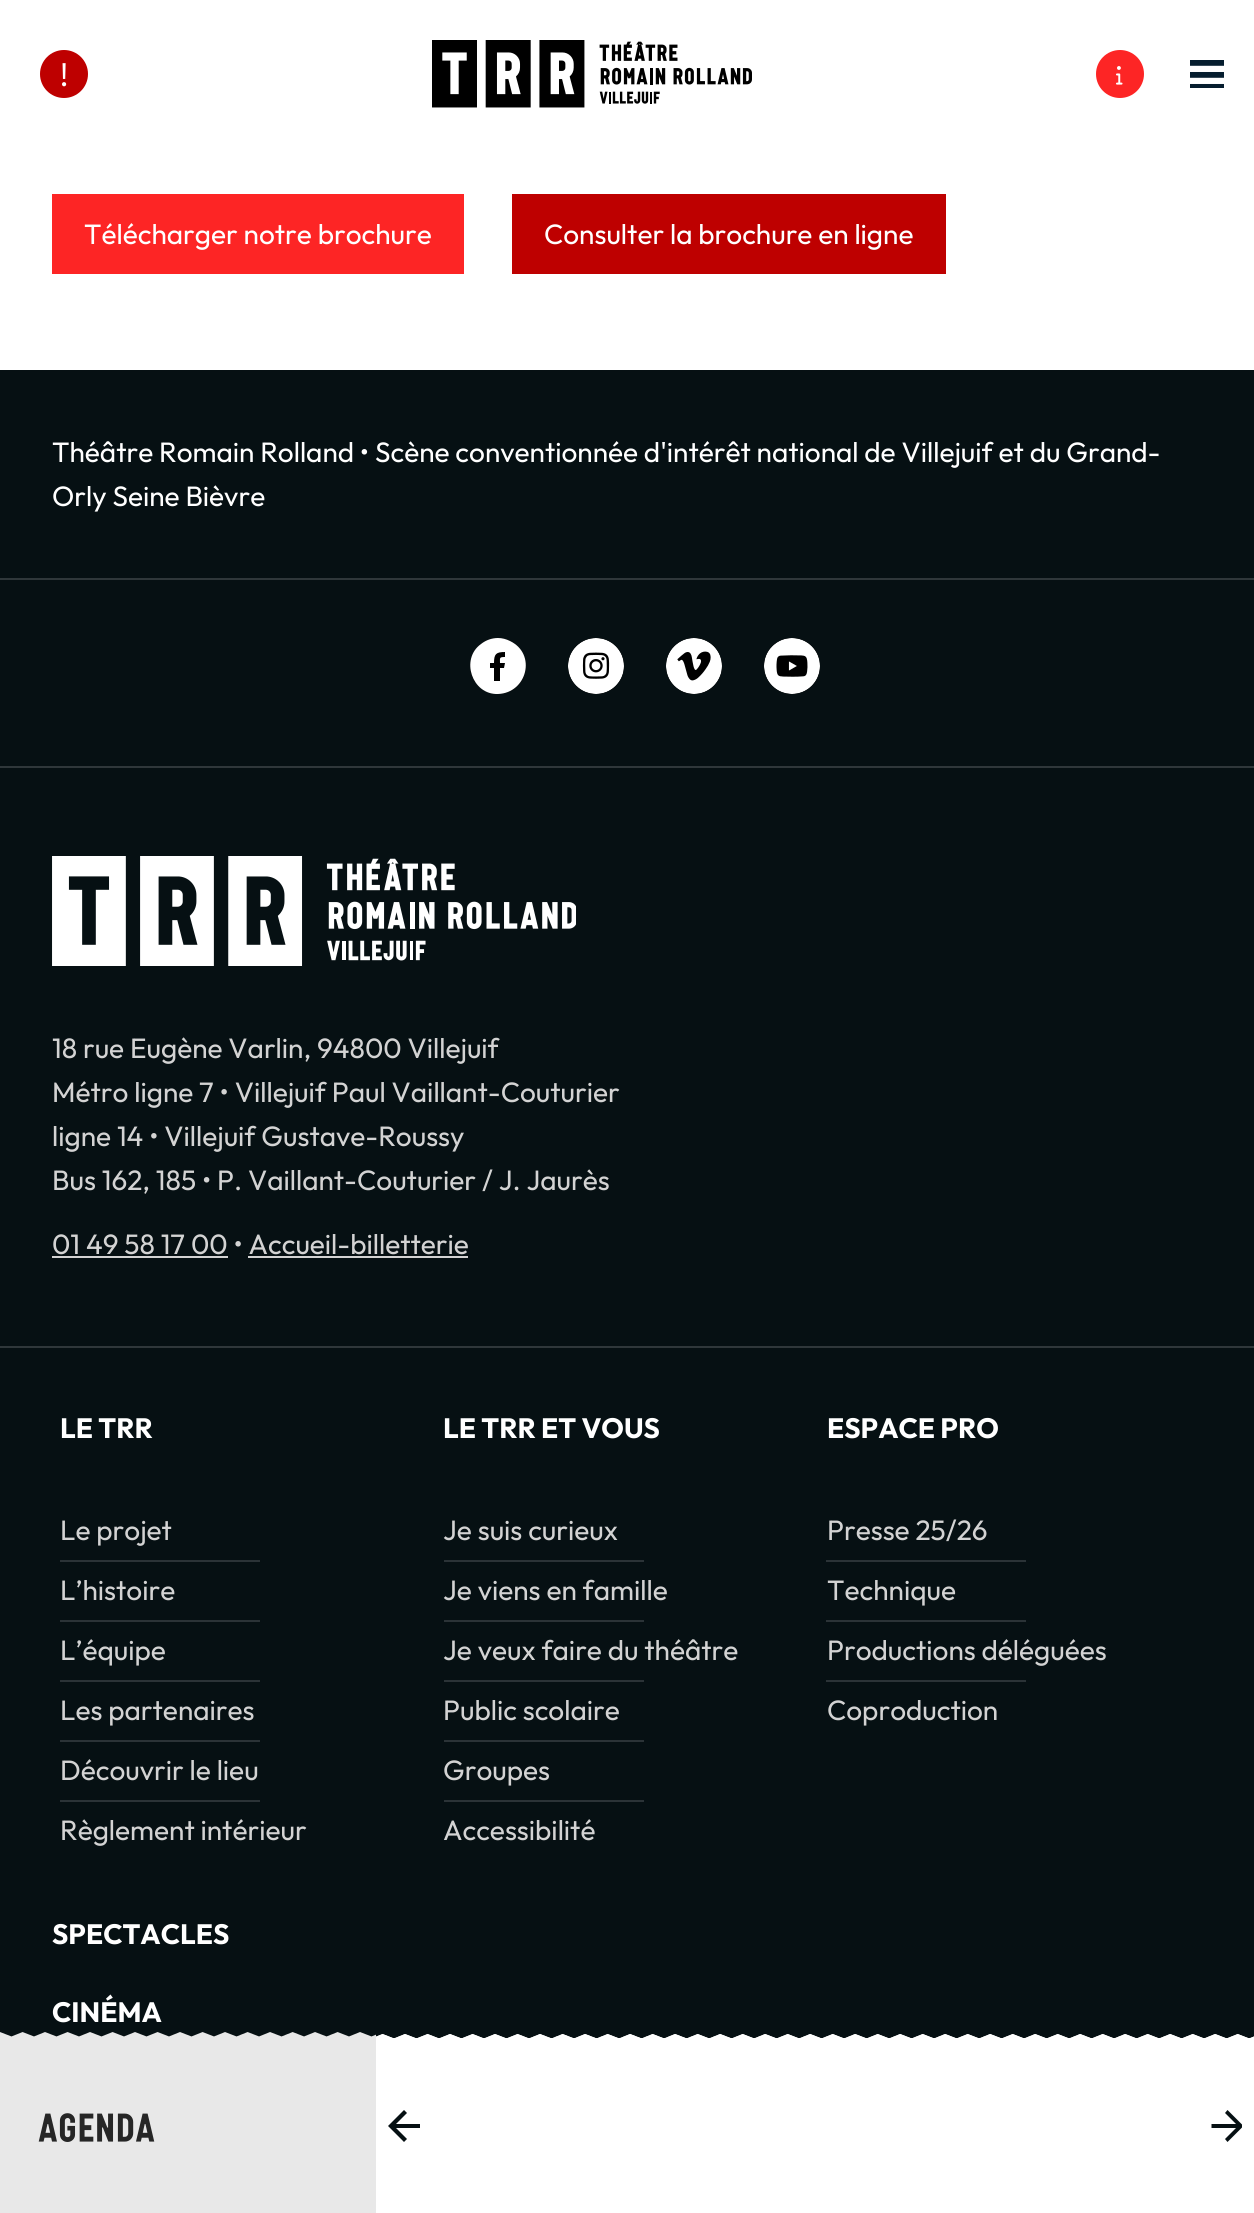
#include <cairo.h>
#include <math.h>
#include <stddef.h>


static void picture(cairo_t *cr, const char *path, double x, double y, double w, double h) {
    cairo_surface_t *image = cairo_image_surface_create_from_png(path);
    cairo_save(cr);
    cairo_set_source_surface(cr, image, x, y);
    cairo_rectangle(cr, x, y, w, h);
    cairo_fill(cr);
    cairo_restore(cr);
    cairo_surface_destroy(image);
}

int main(void) {
    cairo_surface_t *surface = cairo_image_surface_create(CAIRO_FORMAT_RGB24, 1254, 2213);
    cairo_t *cr = cairo_create(surface);
    cairo_font_options_t *options = cairo_font_options_create();
    cairo_font_options_set_hint_metrics(options, CAIRO_HINT_METRICS_OFF);
    cairo_font_options_set_hint_style(options, CAIRO_HINT_STYLE_NONE);
    cairo_set_font_options(cr, options);
    cairo_set_miter_limit(cr, 4);
    cairo_set_source_rgb(cr, 1, 1, 1);
    cairo_paint(cr);
    cairo_set_source_rgb(cr, 0.745, 0, 0);
    cairo_arc(cr, 64, 74, 24, 0, 2 * M_PI);
    cairo_fill(cr);
    cairo_select_font_face(cr, "Outfit", CAIRO_FONT_SLANT_NORMAL, CAIRO_FONT_WEIGHT_NORMAL);
    cairo_set_font_size(cr, 32);
    cairo_set_source_rgb(cr, 1, 1, 1);
    cairo_move_to(cr, 60, 86);
    cairo_show_text(cr, "!");
    picture(cr, "img1.png", 432, 40, 320, 68);
    cairo_set_source_rgb(cr, 0.992, 0.145, 0.145);
    cairo_arc(cr, 1120, 74, 24, 0, 2 * M_PI);
    cairo_fill(cr);
    picture(cr, "img2.png", 1116, 66, 7, 19);
    picture(cr, "img3.png", 1190, 60, 34, 28);
    cairo_rectangle(cr, 52, 194, 412, 80);
    cairo_fill(cr);
    cairo_set_font_size(cr, 28);
    cairo_set_source_rgb(cr, 1, 1, 1);
    cairo_move_to(cr, 84, 244);
    cairo_show_text(cr, "Télécharger notre brochure");
    cairo_set_source_rgb(cr, 0.745, 0, 0);
    cairo_rectangle(cr, 512, 194, 434, 80);
    cairo_fill(cr);
    cairo_set_source_rgb(cr, 1, 1, 1);
    cairo_move_to(cr, 544, 244);
    cairo_show_text(cr, "Consulter la brochure en ligne");
    cairo_set_source_rgb(cr, 0.024, 0.063, 0.078);
    cairo_rectangle(cr, 0, 370, 1254, 396);
    cairo_fill(cr);
    cairo_set_source_rgb(cr, 0.184, 0.216, 0.227);
    cairo_rectangle(cr, 0, 766, 1254, 2);
    cairo_fill(cr);
    cairo_set_source_rgb(cr, 1, 1, 1);
    cairo_move_to(cr, 52, 462);
    cairo_show_text(cr, "Théâtre Romain Rolland • Scène conventionnée d'intérêt national de Villejuif et du Grand-");
    cairo_move_to(cr, 52, 506);
    cairo_show_text(cr, "Orly Seine Bièvre");
    cairo_set_source_rgb(cr, 0.184, 0.216, 0.227);
    cairo_rectangle(cr, 0, 578, 1254, 2);
    cairo_fill(cr);
    cairo_set_source_rgb(cr, 0, 0, 0);
    cairo_arc(cr, 498, 666, 28, 0, 2 * M_PI);
    cairo_fill(cr);
    cairo_set_source_rgb(cr, 1, 1, 1);
    cairo_set_fill_rule(cr, CAIRO_FILL_RULE_EVEN_ODD);
    cairo_new_path(cr);
    cairo_move_to(cr, 498, 638);
    cairo_curve_to(cr, 502, 638, 506, 639, 510, 641);
    cairo_curve_to(cr, 537, 654, 527, 693, 498, 694);
    cairo_curve_to(cr, 472, 695, 460, 659, 481, 644);
    cairo_curve_to(cr, 486, 640, 492, 638, 498, 638);
    cairo_close_path(cr);
    cairo_move_to(cr, 505, 657);
    cairo_line_to(cr, 505, 652);
    cairo_curve_to(cr, 496, 652, 494, 654, 494, 663);
    cairo_line_to(cr, 490, 663);
    cairo_line_to(cr, 490, 668);
    cairo_line_to(cr, 494, 668);
    cairo_line_to(cr, 494, 681);
    cairo_line_to(cr, 500, 681);
    cairo_line_to(cr, 500, 668);
    cairo_line_to(cr, 504, 668);
    cairo_line_to(cr, 505, 663);
    cairo_line_to(cr, 500, 663);
    cairo_curve_to(cr, 500, 658, 499, 657, 505, 657);
    cairo_close_path(cr);
    cairo_fill(cr);
    cairo_set_source_rgb(cr, 0, 0, 0);
    cairo_arc(cr, 596, 666, 28, 0, 2 * M_PI);
    cairo_fill(cr);
    picture(cr, "img4.png", 568, 638, 56, 56);
    cairo_arc(cr, 694, 666, 28, 0, 2 * M_PI);
    cairo_fill(cr);
    picture(cr, "img5.png", 666, 638, 56, 56);
    cairo_arc(cr, 792, 666, 28, 0, 2 * M_PI);
    cairo_fill(cr);
    picture(cr, "img6.png", 764, 638, 56, 56);
    cairo_set_source_rgb(cr, 0.024, 0.063, 0.078);
    cairo_rectangle(cr, 0, 768, 1254, 1270);
    cairo_fill(cr);
    picture(cr, "img7.png", 52, 856, 524, 110);
    cairo_set_source_rgb(cr, 0.827, 0.827, 0.827);
    cairo_move_to(cr, 52, 1058);
    cairo_show_text(cr, "18 rue Eugène Varlin, 94800 Villejuif");
    cairo_move_to(cr, 52, 1102);
    cairo_show_text(cr, "Métro ligne 7 • Villejuif Paul Vaillant-Couturier");
    cairo_move_to(cr, 52, 1146);
    cairo_show_text(cr, "ligne 14 • Villejuif Gustave-Roussy");
    cairo_move_to(cr, 52, 1190);
    cairo_show_text(cr, "Bus 162, 185 • P. Vaillant-Couturier / J. Jaurès");
    cairo_move_to(cr, 52, 1254);
    cairo_show_text(cr, "01 49 58 17 00 • Accueil-billetterie");
    cairo_rectangle(cr, 52, 1256, 176, 2);
    cairo_fill(cr);
    cairo_rectangle(cr, 248, 1256, 220, 2);
    cairo_fill(cr);
    cairo_set_source_rgb(cr, 0.184, 0.216, 0.227);
    cairo_rectangle(cr, 0, 1346, 1254, 2);
    cairo_fill(cr);
    cairo_select_font_face(cr, "Outfit", CAIRO_FONT_SLANT_NORMAL, CAIRO_FONT_WEIGHT_BOLD);
    cairo_set_source_rgb(cr, 1, 1, 1);
    cairo_move_to(cr, 60, 1438);
    cairo_show_text(cr, "LE TRR");
    cairo_select_font_face(cr, "Outfit", CAIRO_FONT_SLANT_NORMAL, CAIRO_FONT_WEIGHT_NORMAL);
    cairo_set_source_rgb(cr, 0.827, 0.827, 0.827);
    cairo_move_to(cr, 60, 1540);
    cairo_show_text(cr, "Le projet");
    cairo_set_source_rgb(cr, 0.169, 0.2, 0.216);
    cairo_rectangle(cr, 60, 1560, 200, 2);
    cairo_fill(cr);
    cairo_set_source_rgb(cr, 0.827, 0.827, 0.827);
    cairo_move_to(cr, 60, 1600);
    cairo_show_text(cr, "L’histoire");
    cairo_set_source_rgb(cr, 0.169, 0.2, 0.216);
    cairo_rectangle(cr, 60, 1620, 200, 2);
    cairo_fill(cr);
    cairo_set_source_rgb(cr, 0.827, 0.827, 0.827);
    cairo_move_to(cr, 60, 1660);
    cairo_show_text(cr, "L’équipe");
    cairo_set_source_rgb(cr, 0.169, 0.2, 0.216);
    cairo_rectangle(cr, 60, 1680, 200, 2);
    cairo_fill(cr);
    cairo_set_source_rgb(cr, 0.827, 0.827, 0.827);
    cairo_move_to(cr, 60, 1720);
    cairo_show_text(cr, "Les partenaires");
    cairo_set_source_rgb(cr, 0.169, 0.2, 0.216);
    cairo_rectangle(cr, 60, 1740, 200, 2);
    cairo_fill(cr);
    cairo_set_source_rgb(cr, 0.827, 0.827, 0.827);
    cairo_move_to(cr, 60, 1780);
    cairo_show_text(cr, "Découvrir le lieu");
    cairo_set_source_rgb(cr, 0.169, 0.2, 0.216);
    cairo_rectangle(cr, 60, 1800, 200, 2);
    cairo_fill(cr);
    cairo_set_source_rgb(cr, 0.827, 0.827, 0.827);
    cairo_move_to(cr, 60, 1840);
    cairo_show_text(cr, "Règlement intérieur");
    cairo_select_font_face(cr, "Outfit", CAIRO_FONT_SLANT_NORMAL, CAIRO_FONT_WEIGHT_BOLD);
    cairo_set_source_rgb(cr, 1, 1, 1);
    cairo_move_to(cr, 443, 1438);
    cairo_show_text(cr, "LE TRR ET VOUS");
    cairo_select_font_face(cr, "Outfit", CAIRO_FONT_SLANT_NORMAL, CAIRO_FONT_WEIGHT_NORMAL);
    cairo_set_source_rgb(cr, 0.827, 0.827, 0.827);
    cairo_move_to(cr, 443, 1540);
    cairo_show_text(cr, "Je suis curieux");
    cairo_set_source_rgb(cr, 0.169, 0.2, 0.216);
    cairo_rectangle(cr, 444, 1560, 200, 2);
    cairo_fill(cr);
    cairo_set_source_rgb(cr, 0.827, 0.827, 0.827);
    cairo_move_to(cr, 443, 1600);
    cairo_show_text(cr, "Je viens en famille");
    cairo_set_source_rgb(cr, 0.169, 0.2, 0.216);
    cairo_rectangle(cr, 444, 1620, 200, 2);
    cairo_fill(cr);
    cairo_set_source_rgb(cr, 0.827, 0.827, 0.827);
    cairo_move_to(cr, 443, 1660);
    cairo_show_text(cr, "Je veux faire du théâtre");
    cairo_set_source_rgb(cr, 0.169, 0.2, 0.216);
    cairo_rectangle(cr, 444, 1680, 200, 2);
    cairo_fill(cr);
    cairo_set_source_rgb(cr, 0.827, 0.827, 0.827);
    cairo_move_to(cr, 443, 1720);
    cairo_show_text(cr, "Public scolaire");
    cairo_set_source_rgb(cr, 0.169, 0.2, 0.216);
    cairo_rectangle(cr, 444, 1740, 200, 2);
    cairo_fill(cr);
    cairo_set_source_rgb(cr, 0.827, 0.827, 0.827);
    cairo_move_to(cr, 443, 1780);
    cairo_show_text(cr, "Groupes");
    cairo_set_source_rgb(cr, 0.169, 0.2, 0.216);
    cairo_rectangle(cr, 444, 1800, 200, 2);
    cairo_fill(cr);
    cairo_set_source_rgb(cr, 0.827, 0.827, 0.827);
    cairo_move_to(cr, 443, 1840);
    cairo_show_text(cr, "Accessibilité");
    cairo_select_font_face(cr, "Outfit", CAIRO_FONT_SLANT_NORMAL, CAIRO_FONT_WEIGHT_BOLD);
    cairo_set_source_rgb(cr, 1, 1, 1);
    cairo_move_to(cr, 827, 1438);
    cairo_show_text(cr, "ESPACE PRO");
    cairo_select_font_face(cr, "Outfit", CAIRO_FONT_SLANT_NORMAL, CAIRO_FONT_WEIGHT_NORMAL);
    cairo_set_source_rgb(cr, 0.827, 0.827, 0.827);
    cairo_move_to(cr, 827, 1540);
    cairo_show_text(cr, "Presse 25/26");
    cairo_set_source_rgb(cr, 0.169, 0.2, 0.216);
    cairo_rectangle(cr, 826, 1560, 200, 2);
    cairo_fill(cr);
    cairo_set_source_rgb(cr, 0.827, 0.827, 0.827);
    cairo_move_to(cr, 827, 1600);
    cairo_show_text(cr, "Technique");
    cairo_set_source_rgb(cr, 0.169, 0.2, 0.216);
    cairo_rectangle(cr, 826, 1620, 200, 2);
    cairo_fill(cr);
    cairo_set_source_rgb(cr, 0.827, 0.827, 0.827);
    cairo_move_to(cr, 827, 1660);
    cairo_show_text(cr, "Productions déléguées");
    cairo_set_source_rgb(cr, 0.169, 0.2, 0.216);
    cairo_rectangle(cr, 826, 1680, 200, 2);
    cairo_fill(cr);
    cairo_set_source_rgb(cr, 0.827, 0.827, 0.827);
    cairo_move_to(cr, 827, 1720);
    cairo_show_text(cr, "Coproduction");
    cairo_select_font_face(cr, "Outfit", CAIRO_FONT_SLANT_NORMAL, CAIRO_FONT_WEIGHT_BOLD);
    cairo_set_source_rgb(cr, 1, 1, 1);
    cairo_move_to(cr, 52, 1944);
    cairo_show_text(cr, "SPECTACLES");
    cairo_move_to(cr, 52, 2022);
    cairo_show_text(cr, "CINÉMA");
    picture(cr, "img8.png", 376, 2034, 878, 4);
    picture(cr, "img9.png", 376, 2034, 878, 4);
    cairo_set_source_rgb(cr, 0.91, 0.91, 0.91);
    cairo_rectangle(cr, 0, 2038, 376, 175);
    cairo_fill(cr);
    picture(cr, "img10.png", 0, 2032, 376, 6);
    cairo_select_font_face(cr, "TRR", CAIRO_FONT_SLANT_NORMAL, CAIRO_FONT_WEIGHT_NORMAL);
    cairo_set_font_size(cr, 40);
    cairo_set_source_rgb(cr, 0.149, 0.149, 0.149);
    cairo_move_to(cr, 38, 2142);
    cairo_show_text(cr, "Agenda");
    cairo_set_source_rgb(cr, 0.024, 0.063, 0.078);
    cairo_set_fill_rule(cr, CAIRO_FILL_RULE_WINDING);
    cairo_new_path(cr);
    cairo_move_to(cr, 404, 2142);
    cairo_line_to(cr, 407, 2139);
    cairo_line_to(cr, 396, 2128);
    cairo_line_to(cr, 420, 2128);
    cairo_line_to(cr, 420, 2124);
    cairo_line_to(cr, 396, 2124);
    cairo_line_to(cr, 407, 2113);
    cairo_line_to(cr, 404, 2110);
    cairo_line_to(cr, 388, 2126);
    cairo_close_path(cr);
    cairo_fill(cr);
    cairo_save(cr);
    cairo_rectangle(cr, 1210, 2110, 32, 32);
    cairo_clip(cr);
    cairo_new_path(cr);
    cairo_move_to(cr, 1227.5, 2110);
    cairo_line_to(cr, 1225, 2113);
    cairo_line_to(cr, 1236, 2124);
    cairo_line_to(cr, 1211.5, 2124);
    cairo_line_to(cr, 1211.5, 2128);
    cairo_line_to(cr, 1236, 2128);
    cairo_line_to(cr, 1225, 2139);
    cairo_line_to(cr, 1227.5, 2142);
    cairo_line_to(cr, 1243.5, 2126);
    cairo_close_path(cr);
    cairo_fill(cr);
    cairo_restore(cr);
    cairo_surface_write_to_png(surface, "page.png");
    cairo_font_options_destroy(options);
    cairo_destroy(cr);
    cairo_surface_destroy(surface);
    return 0;
}
